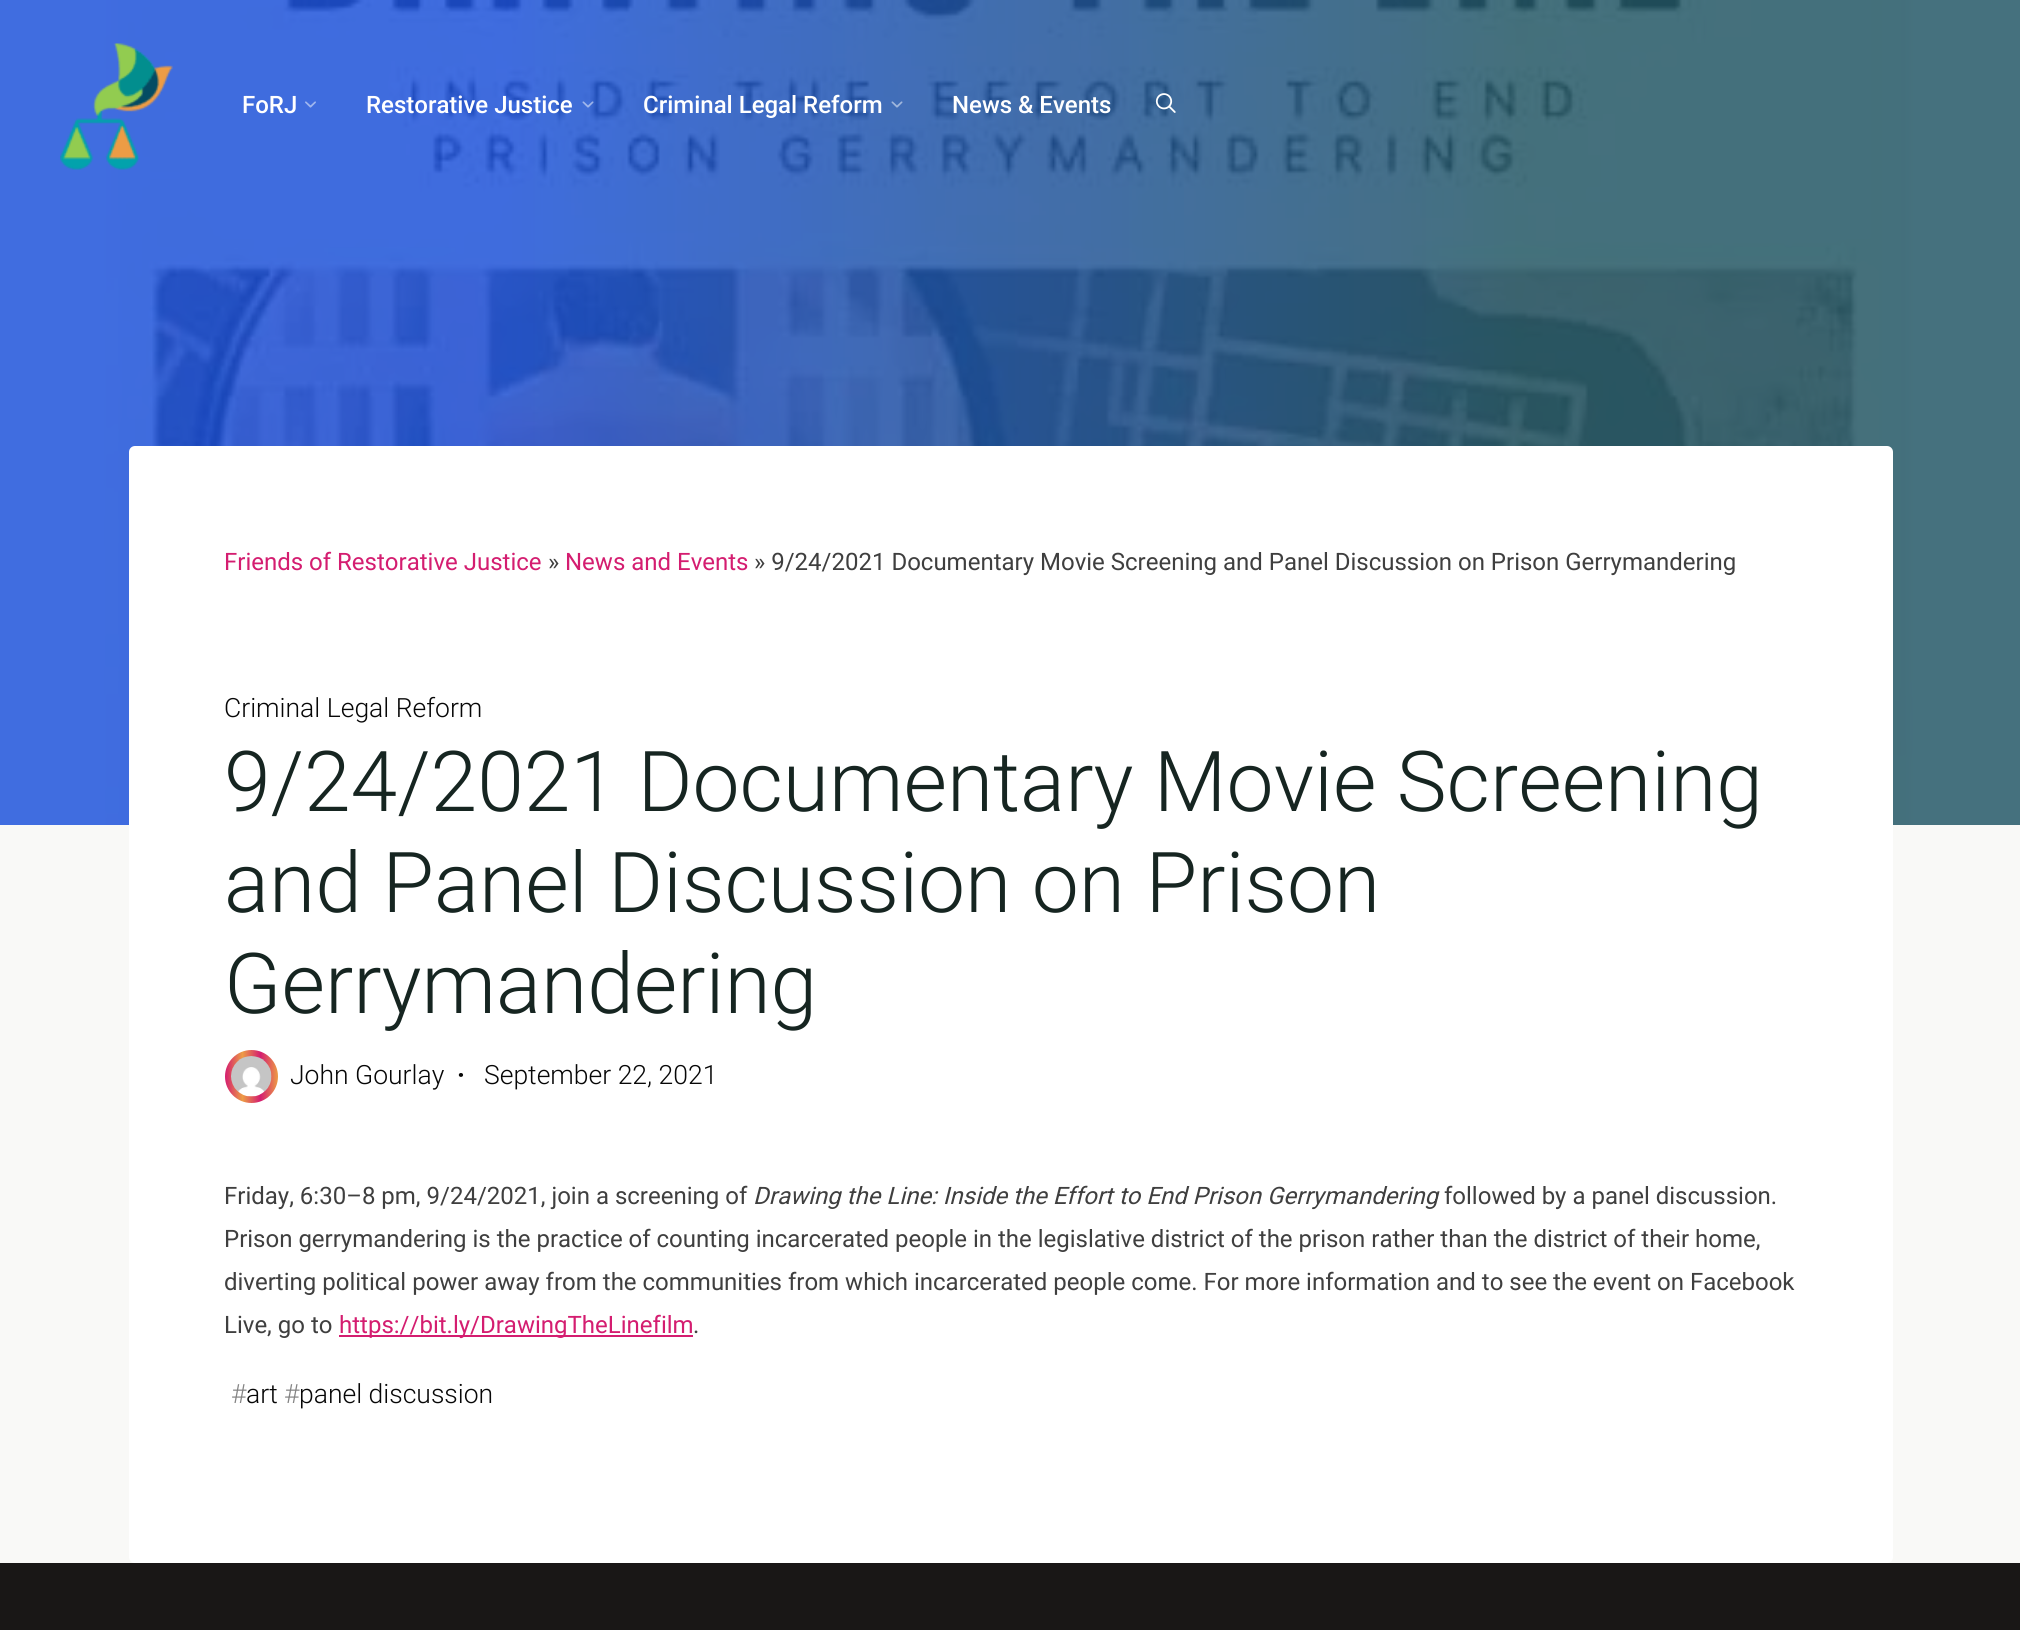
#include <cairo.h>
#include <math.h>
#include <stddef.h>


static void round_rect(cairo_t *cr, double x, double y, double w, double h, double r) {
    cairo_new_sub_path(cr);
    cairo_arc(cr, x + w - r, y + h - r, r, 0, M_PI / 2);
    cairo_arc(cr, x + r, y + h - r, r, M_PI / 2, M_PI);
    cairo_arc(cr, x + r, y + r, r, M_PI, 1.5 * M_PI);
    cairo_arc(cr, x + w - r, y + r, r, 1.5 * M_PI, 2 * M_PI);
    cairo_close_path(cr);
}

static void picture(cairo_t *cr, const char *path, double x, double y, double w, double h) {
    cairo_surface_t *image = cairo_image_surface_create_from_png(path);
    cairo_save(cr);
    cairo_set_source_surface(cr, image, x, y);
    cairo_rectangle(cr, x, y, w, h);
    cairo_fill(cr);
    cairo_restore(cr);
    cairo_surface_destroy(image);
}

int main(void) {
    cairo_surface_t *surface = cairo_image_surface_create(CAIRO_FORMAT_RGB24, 2020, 1630);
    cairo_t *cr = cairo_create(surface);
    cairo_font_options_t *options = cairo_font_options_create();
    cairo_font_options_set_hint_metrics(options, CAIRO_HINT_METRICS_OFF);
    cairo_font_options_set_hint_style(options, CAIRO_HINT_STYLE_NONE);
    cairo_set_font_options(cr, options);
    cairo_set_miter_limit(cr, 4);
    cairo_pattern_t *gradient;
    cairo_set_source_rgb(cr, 0.976, 0.973, 0.965);
    cairo_paint(cr);
    picture(cr, "img1.png", 0, 0, 2020, 825);
    picture(cr, "img2.png", 60, 43, 113, 127);
    cairo_select_font_face(cr, "Roboto Medium", CAIRO_FONT_SLANT_NORMAL, CAIRO_FONT_WEIGHT_NORMAL);
    cairo_set_font_size(cr, 24);
    cairo_set_source_rgb(cr, 1, 1, 1);
    cairo_move_to(cr, 242, 113);
    cairo_show_text(cr, "FoRJ");
    picture(cr, "img3.png", 305, 101, 11, 7);
    cairo_move_to(cr, 366, 113);
    cairo_show_text(cr, "Restorative Justice");
    picture(cr, "img4.png", 582, 101, 12, 7);
    cairo_move_to(cr, 643, 113);
    cairo_show_text(cr, "Criminal Legal Reform");
    picture(cr, "img5.png", 891, 101, 12, 7);
    cairo_move_to(cr, 952, 113);
    cairo_show_text(cr, "News & Events");
    picture(cr, "img6.png", 1155, 93, 21, 20);
    round_rect(cr, 129, 446, 1764, 1117, 6);
    cairo_fill(cr);
    cairo_select_font_face(cr, "Roboto", CAIRO_FONT_SLANT_NORMAL, CAIRO_FONT_WEIGHT_NORMAL);
    cairo_set_source_rgb(cr, 0.831, 0.114, 0.439);
    cairo_move_to(cr, 224, 570);
    cairo_show_text(cr, "Friends of Restorative Justice");
    cairo_set_source_rgb(cr, 0.247, 0.247, 0.247);
    cairo_move_to(cr, 548, 570);
    cairo_show_text(cr, "»");
    cairo_set_source_rgb(cr, 0.831, 0.114, 0.439);
    cairo_move_to(cr, 565, 570);
    cairo_show_text(cr, "News and Events");
    cairo_set_source_rgb(cr, 0.247, 0.247, 0.247);
    cairo_move_to(cr, 754, 570);
    cairo_show_text(cr, "» 9/24/2021 Documentary Movie Screening and Panel Discussion on Prison Gerrymandering");
    cairo_select_font_face(cr, "Roboto Light", CAIRO_FONT_SLANT_NORMAL, CAIRO_FONT_WEIGHT_NORMAL);
    cairo_set_font_size(cr, 26.5);
    cairo_set_source_rgb(cr, 0.031, 0.031, 0.031);
    cairo_move_to(cr, 224, 717);
    cairo_show_text(cr, "Criminal Legal Reform");
    cairo_set_font_size(cr, 84);
    cairo_set_source_rgb(cr, 0.086, 0.145, 0.129);
    cairo_move_to(cr, 224, 811);
    cairo_show_text(cr, "9/24/2021 Documentary Movie Screening");
    cairo_move_to(cr, 224, 912);
    cairo_show_text(cr, "and Panel Discussion on Prison");
    cairo_move_to(cr, 224, 1013);
    cairo_show_text(cr, "Gerrymandering");
    gradient = cairo_pattern_create_linear(225, 1076, 278, 1076);
    cairo_pattern_add_color_stop_rgba(gradient, 0, 0.831, 0.114, 0.439, 1);
    cairo_pattern_add_color_stop_rgba(gradient, 0.33, 0.929, 0.612, 0.271, 1);
    cairo_pattern_add_color_stop_rgba(gradient, 0.67, 0.831, 0.114, 0.439, 1);
    cairo_pattern_add_color_stop_rgba(gradient, 1, 0.929, 0.612, 0.271, 1);
    cairo_set_source(cr, gradient);
    cairo_pattern_destroy(gradient);
    cairo_new_path(cr);
    cairo_arc(cr, 251.5, 1076.5, 26.5, 0, 2 * M_PI);
    cairo_fill(cr);
    picture(cr, "img7.png", 231, 1056, 41, 41);
    cairo_set_font_size(cr, 26.5);
    cairo_set_source_rgb(cr, 0.031, 0.031, 0.031);
    cairo_move_to(cr, 290, 1084);
    cairo_show_text(cr, "John Gourlay");
    cairo_select_font_face(cr, "Roboto", CAIRO_FONT_SLANT_NORMAL, CAIRO_FONT_WEIGHT_BOLD);
    cairo_move_to(cr, 457, 1084);
    cairo_show_text(cr, "·");
    cairo_select_font_face(cr, "Roboto Light", CAIRO_FONT_SLANT_NORMAL, CAIRO_FONT_WEIGHT_NORMAL);
    cairo_move_to(cr, 484, 1084);
    cairo_show_text(cr, "September 22, 2021");
    cairo_select_font_face(cr, "Roboto", CAIRO_FONT_SLANT_NORMAL, CAIRO_FONT_WEIGHT_NORMAL);
    cairo_set_font_size(cr, 24);
    cairo_set_source_rgb(cr, 0.247, 0.247, 0.247);
    cairo_move_to(cr, 224, 1204);
    cairo_show_text(cr, "Friday, 6:30–8 pm, 9/24/2021, join a screening of");
    cairo_select_font_face(cr, "Roboto", CAIRO_FONT_SLANT_ITALIC, CAIRO_FONT_WEIGHT_NORMAL);
    cairo_move_to(cr, 753, 1204);
    cairo_show_text(cr, "Drawing the Line: Inside the Effort to End Prison Gerrymandering");
    cairo_select_font_face(cr, "Roboto", CAIRO_FONT_SLANT_NORMAL, CAIRO_FONT_WEIGHT_NORMAL);
    cairo_move_to(cr, 1444, 1204);
    cairo_show_text(cr, "followed by a panel discussion.");
    cairo_move_to(cr, 224, 1247);
    cairo_show_text(cr, "Prison gerrymandering is the practice of counting incarcerated people in the legislative district of the prison rather than the district of their home,");
    cairo_move_to(cr, 224, 1290);
    cairo_show_text(cr, "diverting political power away from the communities from which incarcerated people come. For more information and to see the event on Facebook");
    cairo_move_to(cr, 224, 1333);
    cairo_show_text(cr, "Live, go to");
    cairo_set_source_rgb(cr, 0.831, 0.114, 0.439);
    cairo_rectangle(cr, 339, 1335, 354, 2);
    cairo_fill(cr);
    cairo_move_to(cr, 339, 1333);
    cairo_show_text(cr, "https://bit.ly/DrawingTheLinefilm");
    cairo_set_source_rgb(cr, 0.247, 0.247, 0.247);
    cairo_move_to(cr, 693, 1333);
    cairo_show_text(cr, ".");
    cairo_select_font_face(cr, "Roboto Light", CAIRO_FONT_SLANT_NORMAL, CAIRO_FONT_WEIGHT_NORMAL);
    cairo_set_font_size(cr, 26.5);
    cairo_set_source_rgb(cr, 0.518, 0.518, 0.518);
    cairo_move_to(cr, 231, 1403);
    cairo_show_text(cr, "#");
    cairo_set_source_rgb(cr, 0.031, 0.031, 0.031);
    cairo_move_to(cr, 246, 1403);
    cairo_show_text(cr, "art");
    cairo_set_source_rgb(cr, 0.518, 0.518, 0.518);
    cairo_move_to(cr, 284, 1403);
    cairo_show_text(cr, "#");
    cairo_set_source_rgb(cr, 0.031, 0.031, 0.031);
    cairo_move_to(cr, 299, 1403);
    cairo_show_text(cr, "panel discussion");
    cairo_set_source_rgb(cr, 0.098, 0.09, 0.086);
    cairo_rectangle(cr, 0, 1563, 2020, 67);
    cairo_fill(cr);
    cairo_surface_write_to_png(surface, "page.png");
    cairo_font_options_destroy(options);
    cairo_destroy(cr);
    cairo_surface_destroy(surface);
    return 0;
}
